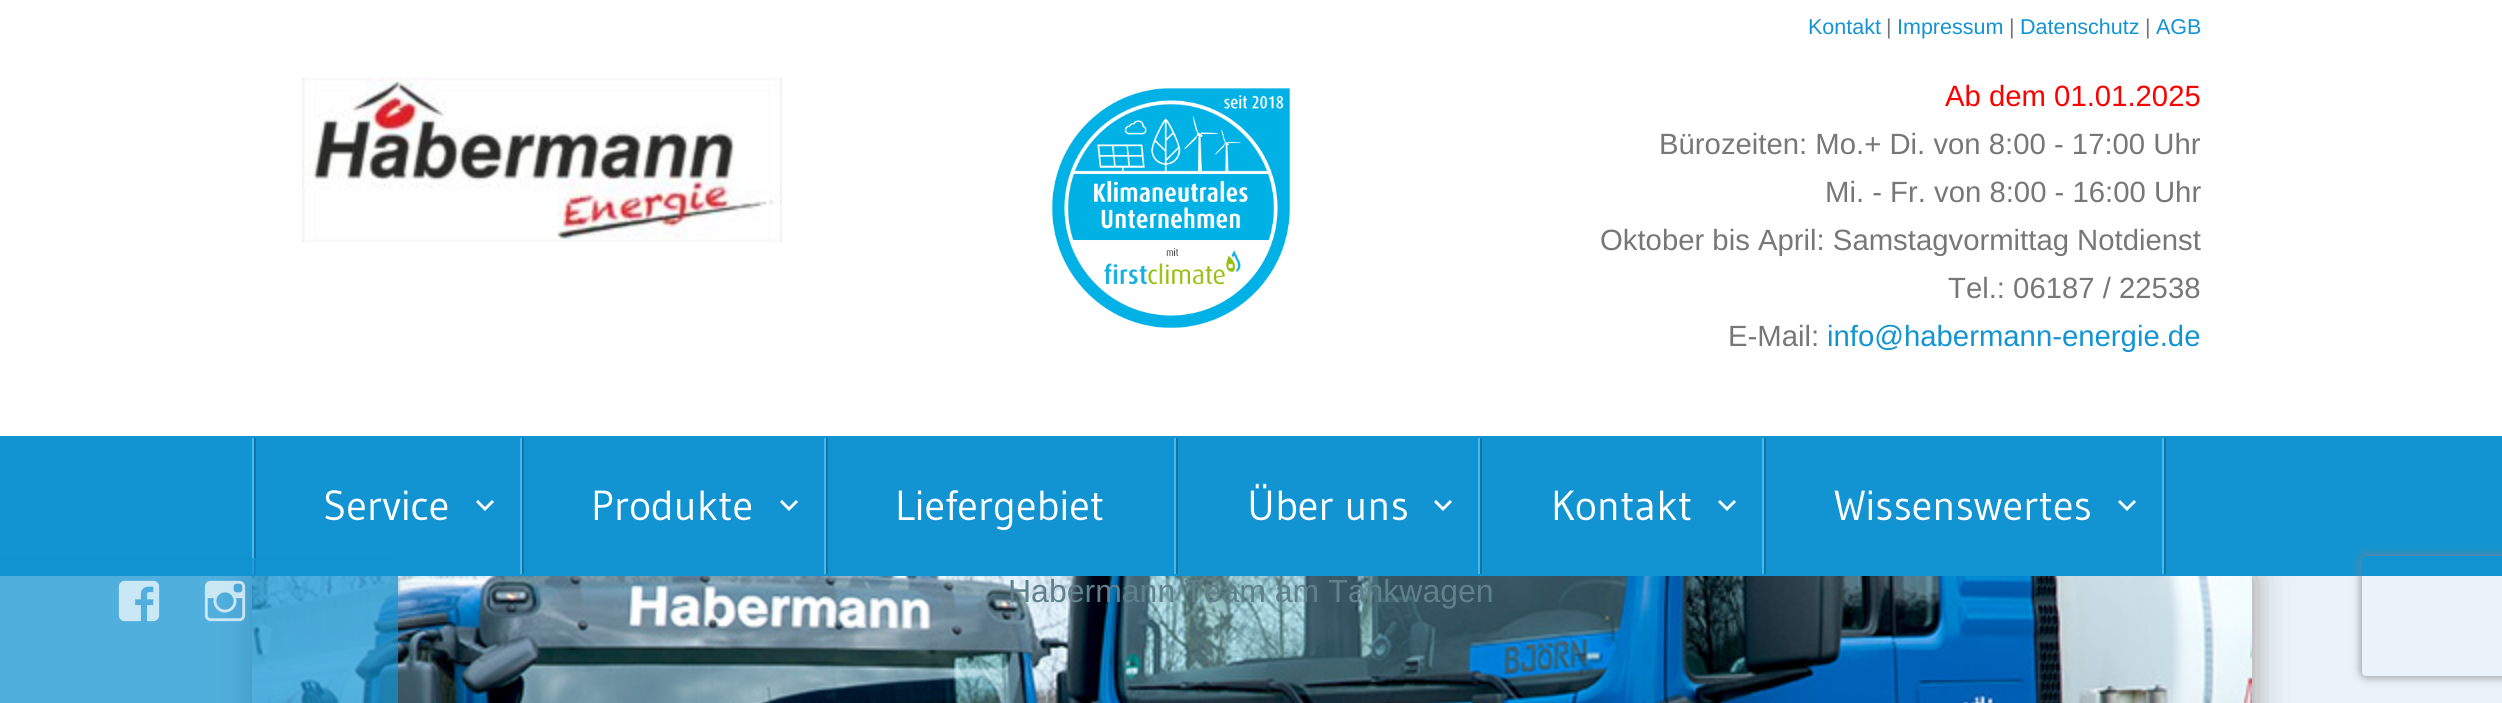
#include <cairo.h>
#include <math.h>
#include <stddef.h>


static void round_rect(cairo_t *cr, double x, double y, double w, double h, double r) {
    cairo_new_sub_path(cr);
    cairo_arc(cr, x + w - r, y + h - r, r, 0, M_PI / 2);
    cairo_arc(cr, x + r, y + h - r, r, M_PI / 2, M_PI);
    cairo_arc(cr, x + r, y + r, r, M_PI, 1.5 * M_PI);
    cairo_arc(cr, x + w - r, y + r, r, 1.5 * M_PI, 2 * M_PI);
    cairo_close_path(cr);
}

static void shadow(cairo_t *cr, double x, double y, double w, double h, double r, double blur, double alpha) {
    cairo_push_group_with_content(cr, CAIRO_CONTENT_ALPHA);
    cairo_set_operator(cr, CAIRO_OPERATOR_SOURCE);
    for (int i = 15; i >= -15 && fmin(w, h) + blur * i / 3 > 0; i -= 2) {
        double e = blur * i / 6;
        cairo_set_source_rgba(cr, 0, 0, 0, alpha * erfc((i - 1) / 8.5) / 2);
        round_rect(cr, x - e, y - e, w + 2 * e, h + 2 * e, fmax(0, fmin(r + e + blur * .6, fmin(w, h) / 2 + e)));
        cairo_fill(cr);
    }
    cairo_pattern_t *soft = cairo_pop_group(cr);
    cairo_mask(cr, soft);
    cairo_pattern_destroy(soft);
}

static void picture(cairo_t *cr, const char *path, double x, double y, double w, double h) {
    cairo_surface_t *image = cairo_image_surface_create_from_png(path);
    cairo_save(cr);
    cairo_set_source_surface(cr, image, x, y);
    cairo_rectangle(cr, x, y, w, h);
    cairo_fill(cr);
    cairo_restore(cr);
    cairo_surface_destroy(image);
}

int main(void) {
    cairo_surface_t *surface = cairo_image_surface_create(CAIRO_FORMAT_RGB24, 2502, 703);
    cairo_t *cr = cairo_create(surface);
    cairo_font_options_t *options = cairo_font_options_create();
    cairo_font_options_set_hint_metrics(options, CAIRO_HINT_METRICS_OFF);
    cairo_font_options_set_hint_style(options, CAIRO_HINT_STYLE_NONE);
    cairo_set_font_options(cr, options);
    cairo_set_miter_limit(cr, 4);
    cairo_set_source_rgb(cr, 0.914, 0.953, 0.973);
    cairo_paint(cr);
    cairo_set_source_rgb(cr, 1, 1, 1);
    cairo_rectangle(cr, 0, 0, 2502, 436);
    cairo_fill(cr);
    picture(cr, "img1.png", 302, 78, 480, 164);
    picture(cr, "img2.png", 1051, 88, 240, 240);
    cairo_select_font_face(cr, "Liberation Sans", CAIRO_FONT_SLANT_NORMAL, CAIRO_FONT_WEIGHT_NORMAL);
    cairo_set_font_size(cr, 21.5);
    cairo_set_source_rgb(cr, 0.071, 0.58, 0.824);
    cairo_move_to(cr, 1808, 34);
    cairo_show_text(cr, "Kontakt");
    cairo_set_source_rgb(cr, 0.467, 0.467, 0.467);
    cairo_move_to(cr, 1886, 34);
    cairo_show_text(cr, "|");
    cairo_set_source_rgb(cr, 0.071, 0.58, 0.824);
    cairo_move_to(cr, 1897, 34);
    cairo_show_text(cr, "Impressum");
    cairo_set_source_rgb(cr, 0.467, 0.467, 0.467);
    cairo_move_to(cr, 2009, 34);
    cairo_show_text(cr, "|");
    cairo_set_source_rgb(cr, 0.071, 0.58, 0.824);
    cairo_move_to(cr, 2020, 34);
    cairo_show_text(cr, "Datenschutz");
    cairo_set_source_rgb(cr, 0.467, 0.467, 0.467);
    cairo_move_to(cr, 2145, 34);
    cairo_show_text(cr, "|");
    cairo_set_source_rgb(cr, 0.071, 0.58, 0.824);
    cairo_move_to(cr, 2156, 34);
    cairo_show_text(cr, "AGB");
    cairo_set_font_size(cr, 29.3);
    cairo_set_source_rgb(cr, 1, 0, 0);
    cairo_move_to(cr, 1945, 106);
    cairo_show_text(cr, "Ab dem 01.01.2025");
    cairo_set_source_rgb(cr, 0.467, 0.467, 0.467);
    cairo_move_to(cr, 1659, 154);
    cairo_show_text(cr, "Bürozeiten: Mo.+ Di. von 8:00 - 17:00 Uhr");
    cairo_move_to(cr, 1825, 202);
    cairo_show_text(cr, "Mi. - Fr. von 8:00 - 16:00 Uhr");
    cairo_move_to(cr, 1600, 250);
    cairo_show_text(cr, "Oktober bis April: Samstagvormittag Notdienst");
    cairo_move_to(cr, 1948, 298);
    cairo_show_text(cr, "Tel.: 06187 / 22538");
    cairo_move_to(cr, 1728, 346);
    cairo_show_text(cr, "E-Mail:");
    cairo_set_source_rgb(cr, 0.071, 0.58, 0.824);
    cairo_move_to(cr, 1827, 346);
    cairo_show_text(cr, "info@habermann-energie.de");
    cairo_set_source_rgb(cr, 0.8, 0.8, 0.8);
    shadow(cr, 252, 576, 2000, 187, 0, 20, 1);
    cairo_set_source_rgb(cr, 0.667, 0.667, 0.667);
    shadow(cr, 252, 576, 2000, 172, 0, 15, 1);
    cairo_set_source_rgb(cr, 0.071, 0.58, 0.824);
    cairo_rectangle(cr, 0, 436, 2502, 140);
    cairo_fill(cr);
    cairo_set_source_rgb(cr, 0.235, 0.729, 0.984);
    cairo_rectangle(cr, 252, 438, 2, 136);
    cairo_fill(cr);
    cairo_rectangle(cr, 520, 438, 2, 136);
    cairo_fill(cr);
    cairo_set_source_rgb(cr, 0.114, 0.447, 0.584);
    cairo_rectangle(cr, 254, 438, 2, 136);
    cairo_fill(cr);
    cairo_select_font_face(cr, "Gudea", CAIRO_FONT_SLANT_NORMAL, CAIRO_FONT_WEIGHT_NORMAL);
    cairo_set_font_size(cr, 42);
    cairo_set_source_rgb(cr, 1, 1, 1);
    cairo_move_to(cr, 323, 520);
    cairo_show_text(cr, "Service");
    cairo_new_path(cr);
    cairo_move_to(cr, 492, 500);
    cairo_line_to(cr, 494, 502);
    cairo_line_to(cr, 485, 511);
    cairo_line_to(cr, 476, 502);
    cairo_line_to(cr, 478, 500);
    cairo_line_to(cr, 485, 507);
    cairo_close_path(cr);
    cairo_fill(cr);
    cairo_set_source_rgb(cr, 0.235, 0.729, 0.984);
    cairo_rectangle(cr, 824, 438, 2, 136);
    cairo_fill(cr);
    cairo_set_source_rgb(cr, 0.114, 0.447, 0.584);
    cairo_rectangle(cr, 522, 438, 2, 136);
    cairo_fill(cr);
    cairo_set_source_rgb(cr, 1, 1, 1);
    cairo_move_to(cr, 591, 520);
    cairo_show_text(cr, "Produkte");
    cairo_new_path(cr);
    cairo_move_to(cr, 796, 500);
    cairo_line_to(cr, 798, 502);
    cairo_line_to(cr, 789, 511);
    cairo_line_to(cr, 780, 502);
    cairo_line_to(cr, 782, 500);
    cairo_line_to(cr, 789, 507);
    cairo_close_path(cr);
    cairo_fill(cr);
    cairo_set_source_rgb(cr, 0.235, 0.729, 0.984);
    cairo_rectangle(cr, 1174, 438, 2, 136);
    cairo_fill(cr);
    cairo_set_source_rgb(cr, 0.114, 0.447, 0.584);
    cairo_rectangle(cr, 826, 438, 2, 136);
    cairo_fill(cr);
    cairo_set_source_rgb(cr, 1, 1, 1);
    cairo_move_to(cr, 895, 520);
    cairo_show_text(cr, "Liefergebiet");
    cairo_set_source_rgb(cr, 0.235, 0.729, 0.984);
    cairo_rectangle(cr, 1478, 438, 2, 136);
    cairo_fill(cr);
    cairo_set_source_rgb(cr, 0.114, 0.447, 0.584);
    cairo_rectangle(cr, 1176, 438, 2, 136);
    cairo_fill(cr);
    cairo_set_source_rgb(cr, 1, 1, 1);
    cairo_move_to(cr, 1247, 520);
    cairo_show_text(cr, "Über uns");
    cairo_new_path(cr);
    cairo_move_to(cr, 1450, 500);
    cairo_line_to(cr, 1452, 502);
    cairo_line_to(cr, 1443, 511);
    cairo_line_to(cr, 1434, 502);
    cairo_line_to(cr, 1436, 500);
    cairo_line_to(cr, 1443, 507);
    cairo_close_path(cr);
    cairo_fill(cr);
    cairo_set_source_rgb(cr, 0.235, 0.729, 0.984);
    cairo_rectangle(cr, 1762, 438, 2, 136);
    cairo_fill(cr);
    cairo_set_source_rgb(cr, 0.114, 0.447, 0.584);
    cairo_rectangle(cr, 1480, 438, 2, 136);
    cairo_fill(cr);
    cairo_set_source_rgb(cr, 1, 1, 1);
    cairo_move_to(cr, 1551, 520);
    cairo_show_text(cr, "Kontakt");
    cairo_new_path(cr);
    cairo_move_to(cr, 1734, 500);
    cairo_line_to(cr, 1736, 502);
    cairo_line_to(cr, 1727, 511);
    cairo_line_to(cr, 1718, 502);
    cairo_line_to(cr, 1720, 500);
    cairo_line_to(cr, 1727, 507);
    cairo_close_path(cr);
    cairo_fill(cr);
    cairo_set_source_rgb(cr, 0.114, 0.447, 0.584);
    cairo_rectangle(cr, 2164, 438, 2, 136);
    cairo_fill(cr);
    cairo_set_source_rgb(cr, 0.235, 0.729, 0.984);
    cairo_rectangle(cr, 2162, 438, 2, 136);
    cairo_fill(cr);
    cairo_set_source_rgb(cr, 0.114, 0.447, 0.584);
    cairo_rectangle(cr, 1764, 438, 2, 136);
    cairo_fill(cr);
    cairo_set_source_rgb(cr, 1, 1, 1);
    cairo_move_to(cr, 1834, 520);
    cairo_show_text(cr, "Wissenswertes");
    cairo_new_path(cr);
    cairo_move_to(cr, 2134, 500);
    cairo_line_to(cr, 2136, 502);
    cairo_line_to(cr, 2127, 511);
    cairo_line_to(cr, 2118, 502);
    cairo_line_to(cr, 2120, 500);
    cairo_line_to(cr, 2127, 507);
    cairo_close_path(cr);
    cairo_fill(cr);
    picture(cr, "img5.png", 252, 576, 2000, 127);
    cairo_set_source_rgba(cr, 0.071, 0.58, 0.824, 0.7);
    cairo_rectangle(cr, 0, 558, 398, 145);
    cairo_fill(cr);
    picture(cr, "img3.png", 118, 580, 42, 42);
    picture(cr, "img4.png", 204, 580, 42, 42);
    cairo_select_font_face(cr, "Liberation Sans", CAIRO_FONT_SLANT_NORMAL, CAIRO_FONT_WEIGHT_NORMAL);
    cairo_set_font_size(cr, 32);
    cairo_set_source_rgb(cr, 0.376, 0.502, 0.549);
    cairo_move_to(cr, 1008, 602);
    cairo_show_text(cr, "Habermann Team am Tankwagen");
    cairo_save(cr);
    cairo_set_fill_rule(cr, CAIRO_FILL_RULE_EVEN_ODD);
    cairo_new_path(cr);
    cairo_move_to(cr, 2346, 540);
    cairo_line_to(cr, 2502, 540);
    cairo_line_to(cr, 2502, 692);
    cairo_line_to(cr, 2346, 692);
    cairo_close_path(cr);
    cairo_move_to(cr, 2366, 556);
    cairo_line_to(cr, 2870, 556);
    cairo_curve_to(cr, 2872, 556, 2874, 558, 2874, 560);
    cairo_line_to(cr, 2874, 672);
    cairo_curve_to(cr, 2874, 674, 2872, 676, 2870, 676);
    cairo_line_to(cr, 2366, 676);
    cairo_curve_to(cr, 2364, 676, 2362, 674, 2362, 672);
    cairo_line_to(cr, 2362, 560);
    cairo_curve_to(cr, 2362, 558, 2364, 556, 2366, 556);
    cairo_close_path(cr);
    cairo_clip(cr);
    cairo_set_source_rgb(cr, 0.502, 0.502, 0.502);
    shadow(cr, 2362, 556, 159, 120, 4, 5, 1);
    cairo_restore(cr);
    cairo_surface_write_to_png(surface, "page.png");
    cairo_font_options_destroy(options);
    cairo_destroy(cr);
    cairo_surface_destroy(surface);
    return 0;
}
